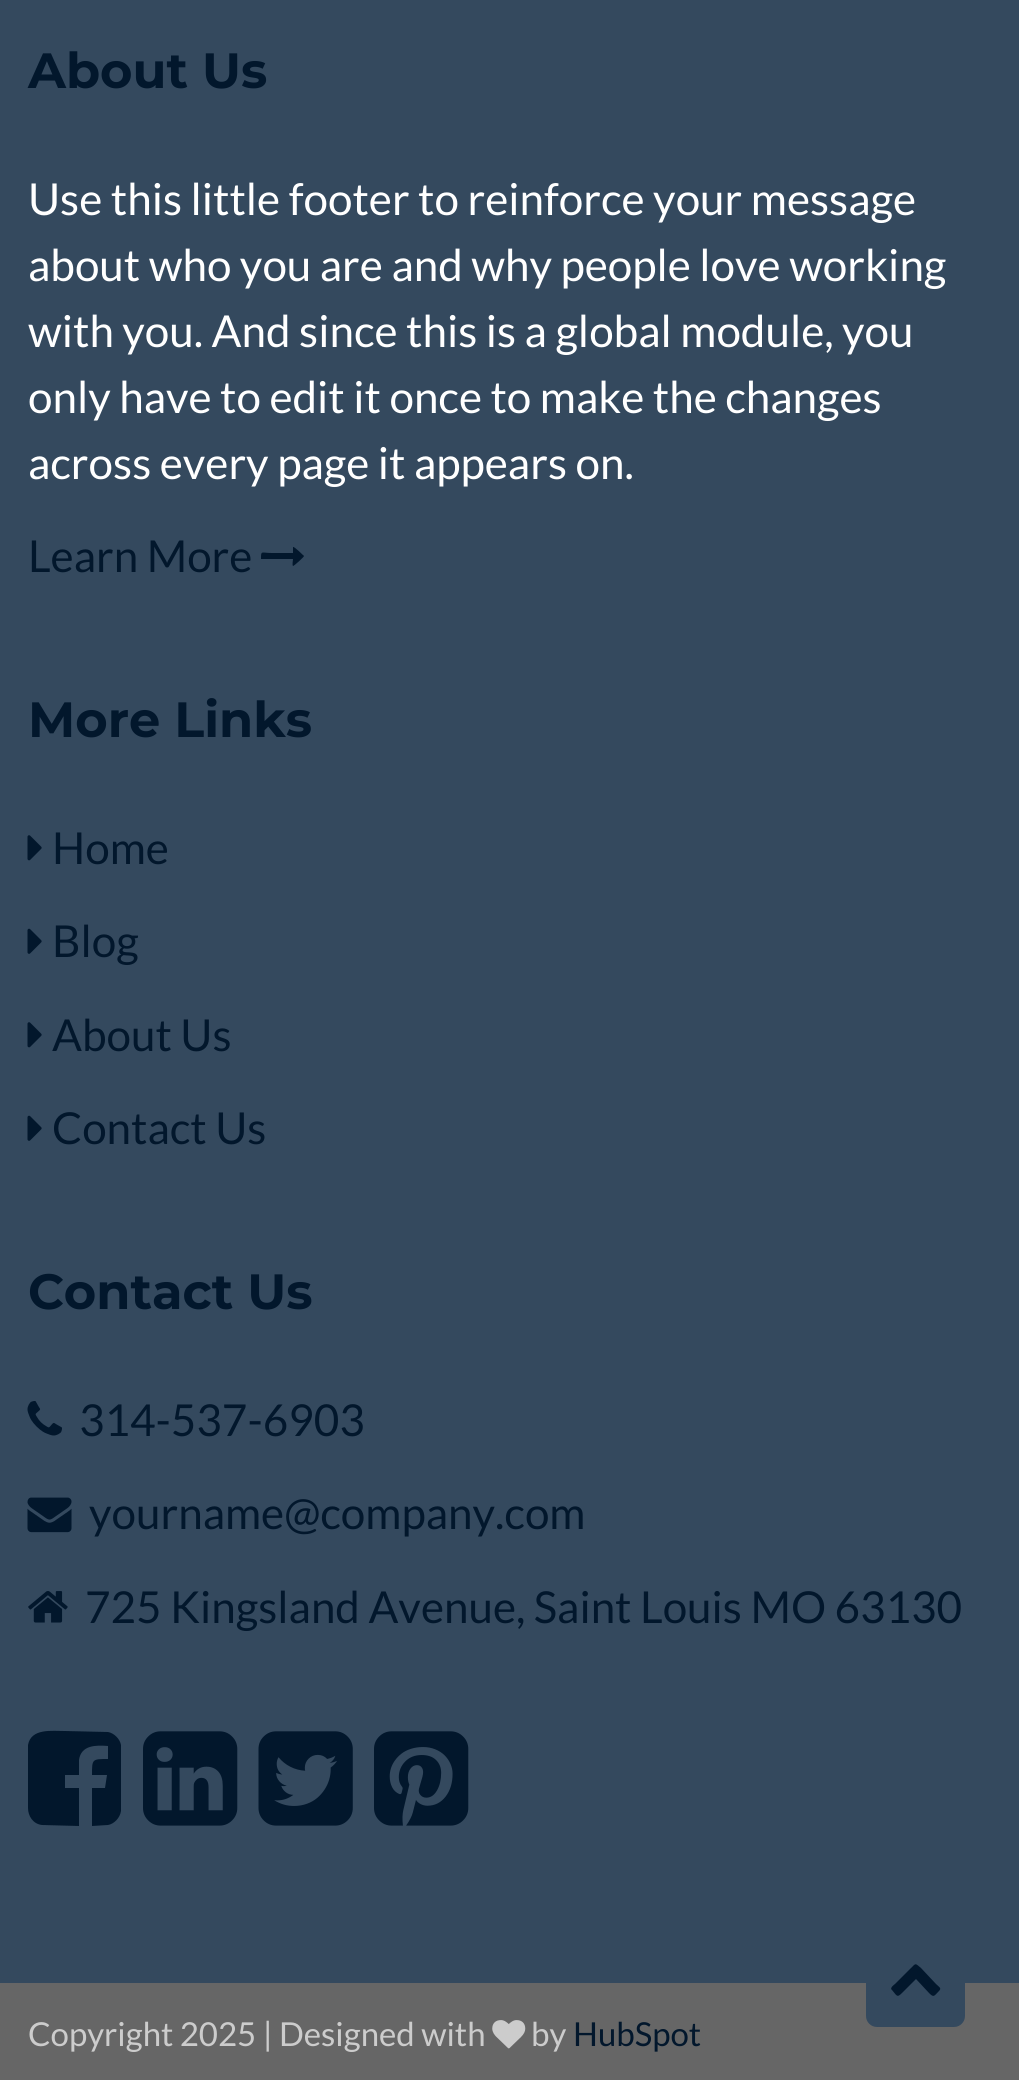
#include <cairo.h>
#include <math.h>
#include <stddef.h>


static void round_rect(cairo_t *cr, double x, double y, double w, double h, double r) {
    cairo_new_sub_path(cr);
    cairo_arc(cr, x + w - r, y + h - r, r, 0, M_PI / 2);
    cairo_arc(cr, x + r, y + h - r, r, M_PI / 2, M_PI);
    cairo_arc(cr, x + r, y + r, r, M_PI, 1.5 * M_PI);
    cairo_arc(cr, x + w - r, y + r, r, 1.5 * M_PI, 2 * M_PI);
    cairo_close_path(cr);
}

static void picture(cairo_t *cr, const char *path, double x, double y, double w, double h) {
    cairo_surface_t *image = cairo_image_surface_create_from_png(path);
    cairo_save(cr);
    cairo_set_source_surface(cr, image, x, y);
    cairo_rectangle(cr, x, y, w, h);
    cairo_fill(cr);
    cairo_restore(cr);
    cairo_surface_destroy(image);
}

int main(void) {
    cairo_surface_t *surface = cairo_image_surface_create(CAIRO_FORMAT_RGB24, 1019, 2080);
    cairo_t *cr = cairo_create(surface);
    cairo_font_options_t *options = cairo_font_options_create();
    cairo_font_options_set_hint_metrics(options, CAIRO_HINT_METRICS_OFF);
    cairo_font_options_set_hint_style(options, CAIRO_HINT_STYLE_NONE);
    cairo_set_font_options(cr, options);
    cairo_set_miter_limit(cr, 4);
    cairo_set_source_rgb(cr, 0.204, 0.286, 0.369);
    cairo_paint(cr);
    cairo_select_font_face(cr, "Montserrat", CAIRO_FONT_SLANT_NORMAL, CAIRO_FONT_WEIGHT_BOLD);
    cairo_set_font_size(cr, 49.5);
    cairo_set_source_rgb(cr, 0.008, 0.09, 0.173);
    cairo_move_to(cr, 28, 88);
    cairo_show_text(cr, "About Us");
    cairo_select_font_face(cr, "Lato", CAIRO_FONT_SLANT_NORMAL, CAIRO_FONT_WEIGHT_NORMAL);
    cairo_set_font_size(cr, 44);
    cairo_set_source_rgb(cr, 1, 1, 1);
    cairo_move_to(cr, 28, 215);
    cairo_show_text(cr, "Use this little footer to reinforce your message");
    cairo_move_to(cr, 28, 281);
    cairo_show_text(cr, "about who you are and why people love working");
    cairo_move_to(cr, 28, 347);
    cairo_show_text(cr, "with you. And since this is a global module, you");
    cairo_move_to(cr, 28, 413);
    cairo_show_text(cr, "only have to edit it once to make the changes");
    cairo_move_to(cr, 28, 479);
    cairo_show_text(cr, "across every page it appears on.");
    cairo_set_source_rgb(cr, 0.008, 0.09, 0.173);
    cairo_move_to(cr, 28, 572);
    cairo_show_text(cr, "Learn More");
    cairo_new_path(cr);
    cairo_move_to(cr, 261, 559);
    cairo_curve_to(cr, 261, 550, 261, 553, 272, 553);
    cairo_line_to(cr, 293, 553);
    cairo_line_to(cr, 293, 547);
    cairo_curve_to(cr, 294, 546, 304, 556, 304, 556);
    cairo_curve_to(cr, 304, 557, 294, 566, 293, 566);
    cairo_curve_to(cr, 292, 565, 293, 560, 293, 559);
    cairo_line_to(cr, 262, 559);
    cairo_close_path(cr);
    cairo_fill(cr);
    cairo_select_font_face(cr, "Montserrat", CAIRO_FONT_SLANT_NORMAL, CAIRO_FONT_WEIGHT_BOLD);
    cairo_set_font_size(cr, 49.5);
    cairo_move_to(cr, 28, 737);
    cairo_show_text(cr, "More Links");
    picture(cr, "img1.png", 27, 835, 15, 26);
    cairo_select_font_face(cr, "Lato", CAIRO_FONT_SLANT_NORMAL, CAIRO_FONT_WEIGHT_NORMAL);
    cairo_set_font_size(cr, 44);
    cairo_move_to(cr, 52, 864);
    cairo_show_text(cr, "Home");
    picture(cr, "img2.png", 27, 928, 15, 26);
    cairo_move_to(cr, 52, 957);
    cairo_show_text(cr, "Blog");
    picture(cr, "img1.png", 27, 1022, 15, 26);
    cairo_move_to(cr, 52, 1051);
    cairo_show_text(cr, "About Us");
    picture(cr, "img2.png", 27, 1115, 15, 26);
    cairo_move_to(cr, 52, 1144);
    cairo_show_text(cr, "Contact Us");
    cairo_select_font_face(cr, "Montserrat", CAIRO_FONT_SLANT_NORMAL, CAIRO_FONT_WEIGHT_BOLD);
    cairo_set_font_size(cr, 49.5);
    cairo_move_to(cr, 28, 1309);
    cairo_show_text(cr, "Contact Us");
    picture(cr, "img3.png", 27, 1401, 35, 35);
    cairo_select_font_face(cr, "Lato", CAIRO_FONT_SLANT_NORMAL, CAIRO_FONT_WEIGHT_NORMAL);
    cairo_set_font_size(cr, 44);
    cairo_move_to(cr, 79, 1436);
    cairo_show_text(cr, "314-537-6903");
    picture(cr, "img4.png", 27, 1497, 45, 36);
    cairo_move_to(cr, 89, 1529);
    cairo_show_text(cr, "yourname@company.com");
    picture(cr, "img5.png", 28, 1591, 40, 32);
    cairo_move_to(cr, 85, 1623);
    cairo_show_text(cr, "725 Kingsland Avenue, Saint Louis MO 63130");
    cairo_new_path(cr);
    cairo_move_to(cr, 28, 1808);
    cairo_line_to(cr, 28, 1745);
    cairo_curve_to(cr, 31, 1728, 52, 1731, 65, 1731);
    cairo_line_to(cr, 108, 1732);
    cairo_curve_to(cr, 114, 1733, 120, 1739, 121, 1745);
    cairo_line_to(cr, 121, 1811);
    cairo_curve_to(cr, 120, 1818, 114, 1824, 108, 1825);
    cairo_line_to(cr, 92, 1826);
    cairo_line_to(cr, 92, 1788);
    cairo_line_to(cr, 105, 1788);
    cairo_line_to(cr, 107, 1775);
    cairo_line_to(cr, 92, 1775);
    cairo_curve_to(cr, 92, 1759, 92, 1759, 108, 1759);
    cairo_line_to(cr, 108, 1746);
    cairo_curve_to(cr, 96, 1745, 81, 1745, 79, 1760);
    cairo_line_to(cr, 79, 1775);
    cairo_line_to(cr, 65, 1775);
    cairo_line_to(cr, 65, 1788);
    cairo_line_to(cr, 79, 1788);
    cairo_line_to(cr, 79, 1826);
    cairo_line_to(cr, 42, 1825);
    cairo_curve_to(cr, 33, 1824, 28, 1816, 28, 1808);
    cairo_close_path(cr);
    cairo_fill(cr);
    picture(cr, "img6.png", 143, 1731, 95, 95);
    picture(cr, "img7.png", 258, 1731, 95, 95);
    picture(cr, "img8.png", 374, 1731, 95, 95);
    cairo_set_source_rgb(cr, 0.4, 0.4, 0.4);
    cairo_rectangle(cr, 0, 1983, 1019, 97);
    cairo_fill(cr);
    cairo_set_source_rgb(cr, 0.204, 0.286, 0.369);
    round_rect(cr, 866, 1931, 99, 96, 11);
    cairo_fill(cr);
    cairo_set_source_rgb(cr, 0.008, 0.09, 0.173);
    cairo_new_path(cr);
    cairo_move_to(cr, 892, 1990);
    cairo_curve_to(cr, 889, 1988, 895, 1984, 895, 1984);
    cairo_line_to(cr, 911, 1968);
    cairo_curve_to(cr, 916, 1963, 915, 1963, 921, 1968);
    cairo_line_to(cr, 936, 1984);
    cairo_curve_to(cr, 939, 1987, 942, 1988, 939, 1991);
    cairo_curve_to(cr, 934, 1996, 934, 1998, 929, 1993);
    cairo_line_to(cr, 916, 1979);
    cairo_line_to(cr, 902, 1993);
    cairo_curve_to(cr, 897, 1998, 897, 1996, 892, 1990);
    cairo_close_path(cr);
    cairo_fill(cr);
    cairo_set_font_size(cr, 33);
    cairo_set_source_rgb(cr, 0.8, 0.8, 0.8);
    cairo_move_to(cr, 28, 2046);
    cairo_show_text(cr, "Copyright 2025 | Designed with");
    picture(cr, "img9.png", 492, 2020, 34, 29);
    cairo_move_to(cr, 531, 2046);
    cairo_show_text(cr, "by");
    cairo_set_source_rgb(cr, 0.008, 0.09, 0.173);
    cairo_move_to(cr, 573, 2046);
    cairo_show_text(cr, "HubSpot");
    cairo_surface_write_to_png(surface, "page.png");
    cairo_font_options_destroy(options);
    cairo_destroy(cr);
    cairo_surface_destroy(surface);
    return 0;
}
